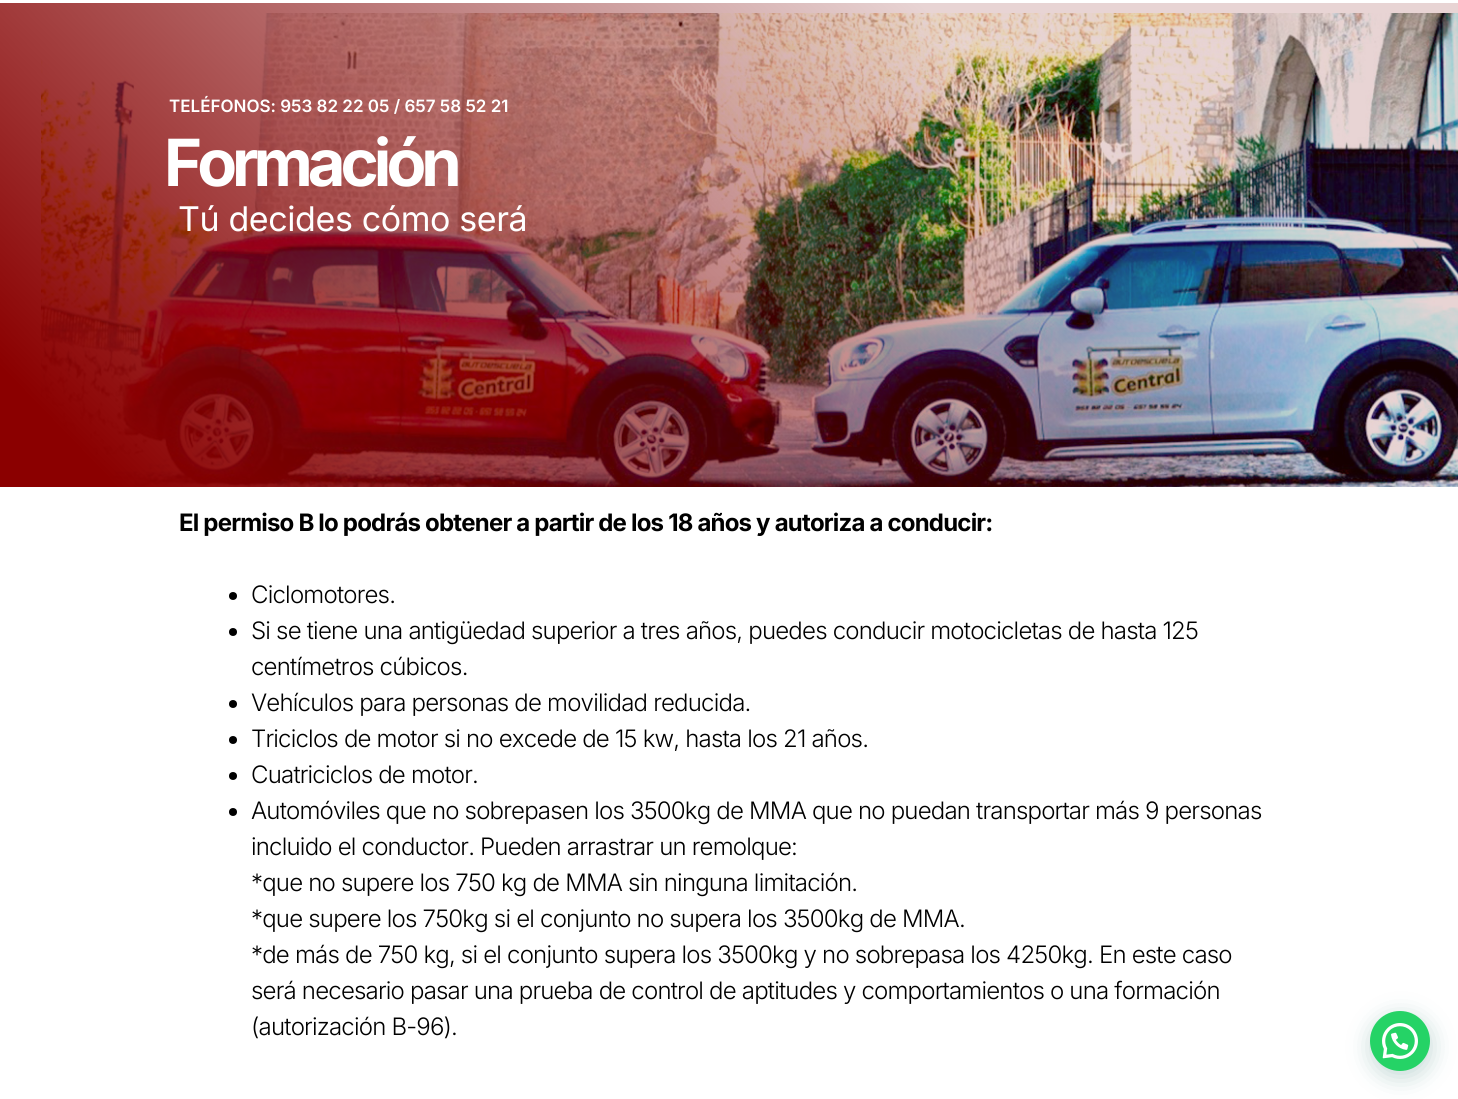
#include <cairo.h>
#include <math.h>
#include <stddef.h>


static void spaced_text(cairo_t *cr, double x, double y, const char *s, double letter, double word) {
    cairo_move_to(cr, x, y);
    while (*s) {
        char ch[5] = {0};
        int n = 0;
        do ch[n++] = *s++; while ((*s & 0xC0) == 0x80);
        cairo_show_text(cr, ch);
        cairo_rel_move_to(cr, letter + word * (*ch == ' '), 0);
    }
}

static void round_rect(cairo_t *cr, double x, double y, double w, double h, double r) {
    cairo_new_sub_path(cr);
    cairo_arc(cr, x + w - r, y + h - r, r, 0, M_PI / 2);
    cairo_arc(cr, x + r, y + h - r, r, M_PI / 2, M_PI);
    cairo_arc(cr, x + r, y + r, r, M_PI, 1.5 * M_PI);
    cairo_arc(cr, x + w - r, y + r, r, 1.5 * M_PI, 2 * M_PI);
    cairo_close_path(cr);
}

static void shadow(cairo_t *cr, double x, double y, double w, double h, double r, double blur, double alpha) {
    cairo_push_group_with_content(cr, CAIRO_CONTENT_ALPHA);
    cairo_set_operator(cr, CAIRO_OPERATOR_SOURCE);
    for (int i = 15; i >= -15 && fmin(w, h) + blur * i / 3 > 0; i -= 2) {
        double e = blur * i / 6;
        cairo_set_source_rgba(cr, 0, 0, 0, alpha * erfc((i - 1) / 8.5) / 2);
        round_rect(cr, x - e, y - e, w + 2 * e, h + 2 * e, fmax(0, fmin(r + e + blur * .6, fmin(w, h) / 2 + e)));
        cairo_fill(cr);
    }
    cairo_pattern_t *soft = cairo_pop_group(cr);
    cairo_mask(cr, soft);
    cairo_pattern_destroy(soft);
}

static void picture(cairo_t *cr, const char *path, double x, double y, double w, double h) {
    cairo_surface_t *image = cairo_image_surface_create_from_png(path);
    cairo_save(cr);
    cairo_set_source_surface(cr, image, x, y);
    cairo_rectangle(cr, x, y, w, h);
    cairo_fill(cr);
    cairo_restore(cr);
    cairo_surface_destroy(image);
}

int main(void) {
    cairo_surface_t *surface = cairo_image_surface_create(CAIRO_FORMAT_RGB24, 1458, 1099);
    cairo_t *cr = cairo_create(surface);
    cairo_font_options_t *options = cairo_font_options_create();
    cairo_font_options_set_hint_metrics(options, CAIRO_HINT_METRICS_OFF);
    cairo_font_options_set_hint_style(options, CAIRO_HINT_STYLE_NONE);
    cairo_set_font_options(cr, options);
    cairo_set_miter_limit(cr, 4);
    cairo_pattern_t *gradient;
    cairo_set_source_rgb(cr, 1, 1, 1);
    cairo_paint(cr);
    picture(cr, "img1.png", 41, 13, 1417, 474);
    gradient = cairo_pattern_create_linear(231, 726, 1227, -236);
    cairo_pattern_add_color_stop_rgba(gradient, 0.06, 0.545, 0, 0, 1);
    cairo_pattern_add_color_stop_rgba(gradient, 0.72, 0.463, 0, 0, 0.17);
    cairo_set_source(cr, gradient);
    cairo_pattern_destroy(gradient);
    cairo_rectangle(cr, 0, 3, 1458, 484);
    cairo_fill(cr);
    cairo_select_font_face(cr, "Inter SemiBold", CAIRO_FONT_SLANT_NORMAL, CAIRO_FONT_WEIGHT_NORMAL);
    cairo_set_font_size(cr, 17);
    cairo_set_source_rgb(cr, 1, 1, 1);
    cairo_move_to(cr, 169, 112);
    cairo_show_text(cr, "TELÉFONOS: 953 82 22 05 / 657 58 52 21");
    cairo_select_font_face(cr, "Inter", CAIRO_FONT_SLANT_NORMAL, CAIRO_FONT_WEIGHT_BOLD);
    cairo_set_font_size(cr, 65);
    spaced_text(cr, 164, 186, "Formación", -5, 0);
    cairo_select_font_face(cr, "Inter", CAIRO_FONT_SLANT_NORMAL, CAIRO_FONT_WEIGHT_NORMAL);
    cairo_set_font_size(cr, 34);
    spaced_text(cr, 178, 231, "Tú decides cómo será", -0.4, 0);
    cairo_select_font_face(cr, "Inter", CAIRO_FONT_SLANT_NORMAL, CAIRO_FONT_WEIGHT_BOLD);
    cairo_set_font_size(cr, 24);
    cairo_set_source_rgb(cr, 0, 0, 0);
    spaced_text(cr, 179, 531, "El permiso B lo podrás obtener a partir de los 18 años y autoriza a conducir:", -0.8, 0);
    cairo_new_path(cr);
    cairo_arc(cr, 233, 596, 4, 0, 2 * M_PI);
    cairo_fill(cr);
    cairo_select_font_face(cr, "Inter Light", CAIRO_FONT_SLANT_NORMAL, CAIRO_FONT_WEIGHT_NORMAL);
    spaced_text(cr, 251, 603, "Ciclomotores.", -0.8, 0);
    cairo_new_path(cr);
    cairo_arc(cr, 233, 632, 4, 0, 2 * M_PI);
    cairo_fill(cr);
    spaced_text(cr, 251, 639, "Si se tiene una antigüedad superior a tres años, puedes conducir motocicletas de hasta 125", -0.8, 0);
    spaced_text(cr, 251, 675, "centímetros cúbicos.", -0.8, 0);
    cairo_new_path(cr);
    cairo_arc(cr, 233, 704, 4, 0, 2 * M_PI);
    cairo_fill(cr);
    spaced_text(cr, 251, 711, "Vehículos para personas de movilidad reducida.", -0.8, 0);
    cairo_new_path(cr);
    cairo_arc(cr, 233, 740, 4, 0, 2 * M_PI);
    cairo_fill(cr);
    spaced_text(cr, 251, 747, "Triciclos de motor si no excede de 15 kw, hasta los 21 años.", -0.8, 0);
    cairo_new_path(cr);
    cairo_arc(cr, 233, 776, 4, 0, 2 * M_PI);
    cairo_fill(cr);
    spaced_text(cr, 251, 783, "Cuatriciclos de motor.", -0.8, 0);
    cairo_new_path(cr);
    cairo_arc(cr, 233, 812, 4, 0, 2 * M_PI);
    cairo_fill(cr);
    spaced_text(cr, 251, 819, "Automóviles que no sobrepasen los 3500kg de MMA que no puedan transportar más 9 personas", -0.8, 0);
    spaced_text(cr, 251, 855, "incluido el conductor. Pueden arrastrar un remolque:", -0.8, 0);
    spaced_text(cr, 251, 891, "*que no supere los 750 kg de MMA sin ninguna limitación.", -0.8, 0);
    spaced_text(cr, 251, 927, "*que supere los 750kg si el conjunto no supera los 3500kg de MMA.", -0.8, 0);
    spaced_text(cr, 251, 963, "*de más de 750 kg, si el conjunto supera los 3500kg y no sobrepasa los 4250kg. En este caso", -0.8, 0);
    spaced_text(cr, 251, 999, "será necesario pasar una prueba de control de aptitudes y comportamientos o una formación", -0.8, 0);
    spaced_text(cr, 251, 1035, "(autorización B-96).", -0.8, 0);
    cairo_set_source_rgb(cr, 0.027, 0.369, 0.329);
    shadow(cr, 1371, 1017, 60, 60, 30, 12, 0.24);
    cairo_set_source_rgb(cr, 0.145, 0.827, 0.4);
    cairo_arc(cr, 1400, 1041, 30, 0, 2 * M_PI);
    cairo_fill(cr);
    picture(cr, "img2.png", 1382, 1023, 36, 36);
    cairo_surface_write_to_png(surface, "page.png");
    cairo_font_options_destroy(options);
    cairo_destroy(cr);
    cairo_surface_destroy(surface);
    return 0;
}
